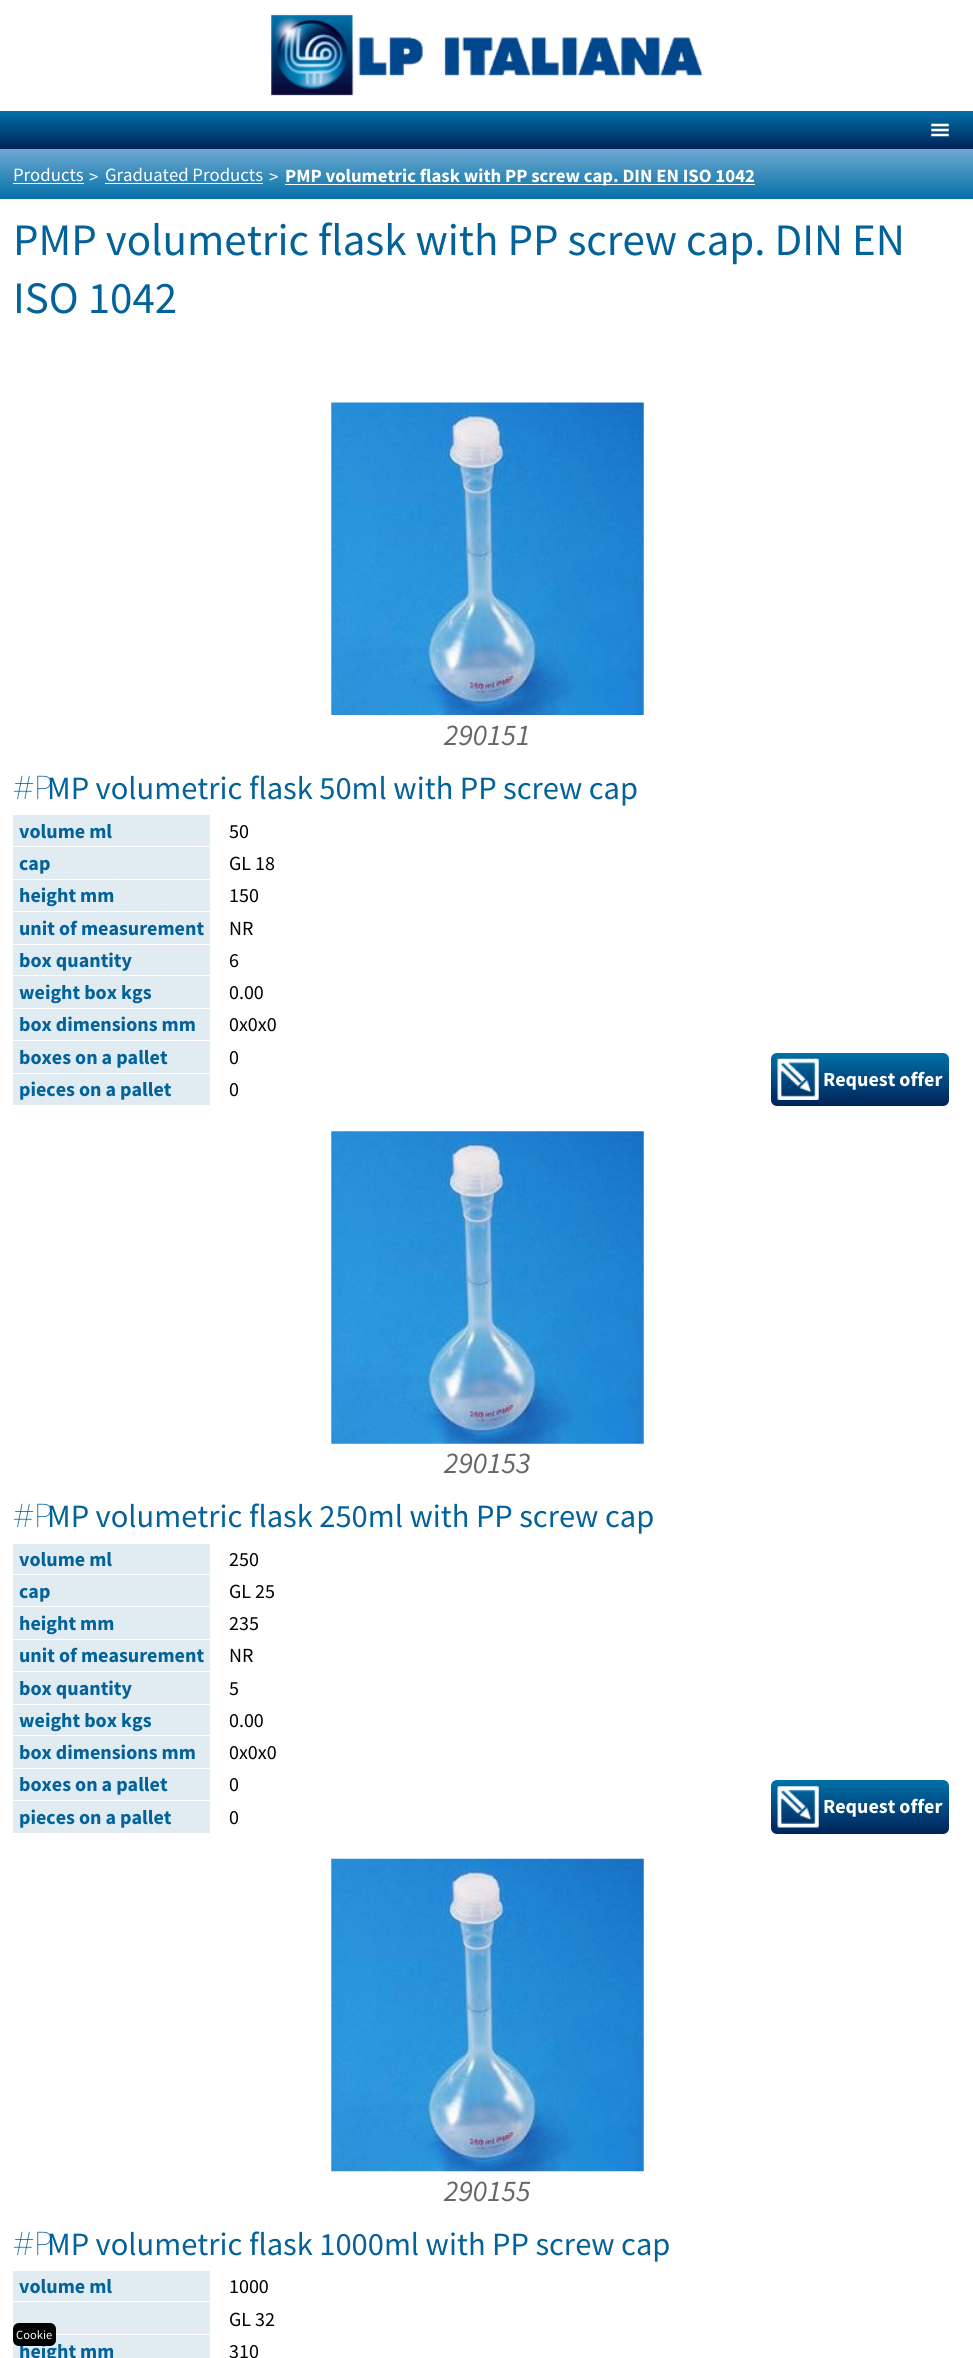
#include <cairo.h>
#include <math.h>
#include <stddef.h>


static void round_rect(cairo_t *cr, double x, double y, double w, double h, double r) {
    cairo_new_sub_path(cr);
    cairo_arc(cr, x + w - r, y + h - r, r, 0, M_PI / 2);
    cairo_arc(cr, x + r, y + h - r, r, M_PI / 2, M_PI);
    cairo_arc(cr, x + r, y + r, r, M_PI, 1.5 * M_PI);
    cairo_arc(cr, x + w - r, y + r, r, 1.5 * M_PI, 2 * M_PI);
    cairo_close_path(cr);
}

static void picture(cairo_t *cr, const char *path, double x, double y, double w, double h) {
    cairo_surface_t *image = cairo_image_surface_create_from_png(path);
    cairo_save(cr);
    cairo_set_source_surface(cr, image, x, y);
    cairo_rectangle(cr, x, y, w, h);
    cairo_fill(cr);
    cairo_restore(cr);
    cairo_surface_destroy(image);
}

int main(void) {
    cairo_surface_t *surface = cairo_image_surface_create(CAIRO_FORMAT_RGB24, 973, 2358);
    cairo_t *cr = cairo_create(surface);
    cairo_font_options_t *options = cairo_font_options_create();
    cairo_font_options_set_hint_metrics(options, CAIRO_HINT_METRICS_OFF);
    cairo_font_options_set_hint_style(options, CAIRO_HINT_STYLE_NONE);
    cairo_set_font_options(cr, options);
    cairo_set_miter_limit(cr, 4);
    cairo_pattern_t *gradient;
    cairo_set_source_rgb(cr, 1, 1, 1);
    cairo_paint(cr);
    picture(cr, "img1.png", 271, 14, 432, 82);
    gradient = cairo_pattern_create_linear(487, 111, 487, 149);
    cairo_pattern_add_color_stop_rgba(gradient, 0, 0, 0.443, 0.655, 1);
    cairo_pattern_add_color_stop_rgba(gradient, 1, 0, 0.137, 0.349, 1);
    cairo_set_source(cr, gradient);
    cairo_pattern_destroy(gradient);
    cairo_rectangle(cr, 0, 111, 973, 38);
    cairo_fill(cr);
    picture(cr, "img2.png", 931, 123, 18, 14);
    gradient = cairo_pattern_create_linear(487, 149, 487, 199);
    cairo_pattern_add_color_stop_rgba(gradient, 0, 0.431, 0.663, 0.82, 1);
    cairo_pattern_add_color_stop_rgba(gradient, 1, 0.02, 0.439, 0.659, 1);
    cairo_set_source(cr, gradient);
    cairo_pattern_destroy(gradient);
    cairo_rectangle(cr, 0, 149, 973, 50);
    cairo_fill(cr);
    cairo_select_font_face(cr, "Source Sans Pro", CAIRO_FONT_SLANT_NORMAL, CAIRO_FONT_WEIGHT_NORMAL);
    cairo_set_font_size(cr, 18.75);
    cairo_set_source_rgb(cr, 1, 1, 1);
    cairo_move_to(cr, 13, 181);
    cairo_show_text(cr, "Products");
    cairo_rectangle(cr, 13, 183, 71, 1);
    cairo_fill(cr);
    cairo_move_to(cr, 89, 183);
    cairo_show_text(cr, ">");
    cairo_move_to(cr, 105, 181);
    cairo_show_text(cr, "Graduated Products");
    cairo_rectangle(cr, 105, 183, 158, 1);
    cairo_fill(cr);
    cairo_move_to(cr, 269, 183);
    cairo_show_text(cr, ">");
    cairo_rectangle(cr, 285, 184, 470, 1);
    cairo_fill(cr);
    cairo_select_font_face(cr, "Source Sans Pro", CAIRO_FONT_SLANT_NORMAL, CAIRO_FONT_WEIGHT_BOLD);
    cairo_move_to(cr, 285, 182);
    cairo_show_text(cr, "PMP volumetric flask with PP screw cap. DIN EN ISO 1042");
    cairo_select_font_face(cr, "Source Sans Pro", CAIRO_FONT_SLANT_NORMAL, CAIRO_FONT_WEIGHT_NORMAL);
    cairo_set_font_size(cr, 45);
    cairo_set_source_rgb(cr, 0.008, 0.384, 0.6);
    cairo_move_to(cr, 13, 255);
    cairo_show_text(cr, "PMP volumetric flask with PP screw cap. DIN EN");
    cairo_move_to(cr, 13, 313);
    cairo_show_text(cr, "ISO 1042");
    picture(cr, "img3.png", 331, 402, 313, 313);
    cairo_select_font_face(cr, "Source Sans Pro", CAIRO_FONT_SLANT_ITALIC, CAIRO_FONT_WEIGHT_NORMAL);
    cairo_set_font_size(cr, 30);
    cairo_set_source_rgb(cr, 0.4, 0.4, 0.4);
    cairo_move_to(cr, 444, 745);
    cairo_show_text(cr, "290151");
    cairo_select_font_face(cr, "Noto Sans Thin", CAIRO_FONT_SLANT_NORMAL, CAIRO_FONT_WEIGHT_NORMAL);
    cairo_set_font_size(cr, 32.5);
    cairo_set_source_rgb(cr, 0.008, 0.384, 0.6);
    cairo_move_to(cr, 13, 799);
    cairo_show_text(cr, "#P");
    cairo_select_font_face(cr, "Source Sans Pro", CAIRO_FONT_SLANT_NORMAL, CAIRO_FONT_WEIGHT_NORMAL);
    cairo_move_to(cr, 47, 799);
    cairo_show_text(cr, "MP volumetric flask 50ml with PP screw cap");
    cairo_set_source_rgb(cr, 0.882, 0.925, 0.949);
    cairo_rectangle(cr, 13, 815, 197, 64);
    cairo_fill(cr);
    cairo_set_source_rgb(cr, 1, 1, 1);
    cairo_rectangle(cr, 13, 846, 197, 1);
    cairo_fill(cr);
    cairo_select_font_face(cr, "Source Sans Pro", CAIRO_FONT_SLANT_NORMAL, CAIRO_FONT_WEIGHT_BOLD);
    cairo_set_font_size(cr, 20);
    cairo_set_source_rgb(cr, 0.008, 0.384, 0.6);
    cairo_move_to(cr, 19, 838);
    cairo_show_text(cr, "volume ml");
    cairo_select_font_face(cr, "Source Sans Pro", CAIRO_FONT_SLANT_NORMAL, CAIRO_FONT_WEIGHT_NORMAL);
    cairo_set_source_rgb(cr, 0, 0, 0);
    cairo_move_to(cr, 229, 838);
    cairo_show_text(cr, "50");
    cairo_select_font_face(cr, "Source Sans Pro", CAIRO_FONT_SLANT_NORMAL, CAIRO_FONT_WEIGHT_BOLD);
    cairo_set_source_rgb(cr, 0.008, 0.384, 0.6);
    cairo_move_to(cr, 19, 870);
    cairo_show_text(cr, "cap");
    cairo_select_font_face(cr, "Source Sans Pro", CAIRO_FONT_SLANT_NORMAL, CAIRO_FONT_WEIGHT_NORMAL);
    cairo_set_source_rgb(cr, 0, 0, 0);
    cairo_move_to(cr, 229, 870);
    cairo_show_text(cr, "GL 18");
    cairo_set_source_rgb(cr, 0.882, 0.925, 0.949);
    cairo_rectangle(cr, 13, 880, 197, 64);
    cairo_fill(cr);
    cairo_set_source_rgb(cr, 1, 1, 1);
    cairo_rectangle(cr, 13, 911, 197, 1);
    cairo_fill(cr);
    cairo_select_font_face(cr, "Source Sans Pro", CAIRO_FONT_SLANT_NORMAL, CAIRO_FONT_WEIGHT_BOLD);
    cairo_set_source_rgb(cr, 0.008, 0.384, 0.6);
    cairo_move_to(cr, 19, 902);
    cairo_show_text(cr, "height mm");
    cairo_select_font_face(cr, "Source Sans Pro", CAIRO_FONT_SLANT_NORMAL, CAIRO_FONT_WEIGHT_NORMAL);
    cairo_set_source_rgb(cr, 0, 0, 0);
    cairo_move_to(cr, 229, 902);
    cairo_show_text(cr, "150");
    cairo_select_font_face(cr, "Source Sans Pro", CAIRO_FONT_SLANT_NORMAL, CAIRO_FONT_WEIGHT_BOLD);
    cairo_set_source_rgb(cr, 0.008, 0.384, 0.6);
    cairo_move_to(cr, 19, 935);
    cairo_show_text(cr, "unit of measurement");
    cairo_select_font_face(cr, "Source Sans Pro", CAIRO_FONT_SLANT_NORMAL, CAIRO_FONT_WEIGHT_NORMAL);
    cairo_set_source_rgb(cr, 0, 0, 0);
    cairo_move_to(cr, 229, 935);
    cairo_show_text(cr, "NR");
    cairo_set_source_rgb(cr, 0.882, 0.925, 0.949);
    cairo_rectangle(cr, 13, 945, 197, 30);
    cairo_fill(cr);
    cairo_select_font_face(cr, "Source Sans Pro", CAIRO_FONT_SLANT_NORMAL, CAIRO_FONT_WEIGHT_BOLD);
    cairo_set_source_rgb(cr, 0.008, 0.384, 0.6);
    cairo_move_to(cr, 19, 967);
    cairo_show_text(cr, "box quantity");
    cairo_select_font_face(cr, "Source Sans Pro", CAIRO_FONT_SLANT_NORMAL, CAIRO_FONT_WEIGHT_NORMAL);
    cairo_set_source_rgb(cr, 0, 0, 0);
    cairo_move_to(cr, 229, 967);
    cairo_show_text(cr, "6");
    cairo_set_source_rgb(cr, 0.882, 0.925, 0.949);
    cairo_rectangle(cr, 13, 976, 197, 32);
    cairo_fill(cr);
    cairo_select_font_face(cr, "Source Sans Pro", CAIRO_FONT_SLANT_NORMAL, CAIRO_FONT_WEIGHT_BOLD);
    cairo_set_source_rgb(cr, 0.008, 0.384, 0.6);
    cairo_move_to(cr, 19, 999);
    cairo_show_text(cr, "weight box kgs");
    cairo_select_font_face(cr, "Source Sans Pro", CAIRO_FONT_SLANT_NORMAL, CAIRO_FONT_WEIGHT_NORMAL);
    cairo_set_source_rgb(cr, 0, 0, 0);
    cairo_move_to(cr, 229, 999);
    cairo_show_text(cr, "0.00");
    cairo_set_source_rgb(cr, 0.882, 0.925, 0.949);
    cairo_rectangle(cr, 13, 1009, 197, 31);
    cairo_fill(cr);
    cairo_select_font_face(cr, "Source Sans Pro", CAIRO_FONT_SLANT_NORMAL, CAIRO_FONT_WEIGHT_BOLD);
    cairo_set_source_rgb(cr, 0.008, 0.384, 0.6);
    cairo_move_to(cr, 19, 1031);
    cairo_show_text(cr, "box dimensions mm");
    cairo_select_font_face(cr, "Source Sans Pro", CAIRO_FONT_SLANT_NORMAL, CAIRO_FONT_WEIGHT_NORMAL);
    cairo_set_source_rgb(cr, 0, 0, 0);
    cairo_move_to(cr, 229, 1031);
    cairo_show_text(cr, "0x0x0");
    cairo_set_source_rgb(cr, 0.882, 0.925, 0.949);
    cairo_rectangle(cr, 13, 1041, 197, 32);
    cairo_fill(cr);
    cairo_select_font_face(cr, "Source Sans Pro", CAIRO_FONT_SLANT_NORMAL, CAIRO_FONT_WEIGHT_BOLD);
    cairo_set_source_rgb(cr, 0.008, 0.384, 0.6);
    cairo_move_to(cr, 19, 1064);
    cairo_show_text(cr, "boxes on a pallet");
    cairo_select_font_face(cr, "Source Sans Pro", CAIRO_FONT_SLANT_NORMAL, CAIRO_FONT_WEIGHT_NORMAL);
    cairo_set_source_rgb(cr, 0, 0, 0);
    cairo_move_to(cr, 229, 1064);
    cairo_show_text(cr, "0");
    cairo_set_source_rgb(cr, 0.882, 0.925, 0.949);
    cairo_rectangle(cr, 13, 1074, 197, 31);
    cairo_fill(cr);
    cairo_select_font_face(cr, "Source Sans Pro", CAIRO_FONT_SLANT_NORMAL, CAIRO_FONT_WEIGHT_BOLD);
    cairo_set_source_rgb(cr, 0.008, 0.384, 0.6);
    cairo_move_to(cr, 19, 1096);
    cairo_show_text(cr, "pieces on a pallet");
    cairo_select_font_face(cr, "Source Sans Pro", CAIRO_FONT_SLANT_NORMAL, CAIRO_FONT_WEIGHT_NORMAL);
    cairo_set_source_rgb(cr, 0, 0, 0);
    cairo_move_to(cr, 229, 1096);
    cairo_show_text(cr, "0");
    gradient = cairo_pattern_create_linear(860, 1053, 860, 1106);
    cairo_pattern_add_color_stop_rgba(gradient, 0, 0, 0.443, 0.655, 1);
    cairo_pattern_add_color_stop_rgba(gradient, 1, 0, 0.137, 0.349, 1);
    cairo_set_source(cr, gradient);
    cairo_pattern_destroy(gradient);
    round_rect(cr, 771, 1053, 178, 53, 6);
    cairo_fill(cr);
    picture(cr, "img4.png", 777, 1058, 42, 42);
    cairo_select_font_face(cr, "Source Sans Pro", CAIRO_FONT_SLANT_NORMAL, CAIRO_FONT_WEIGHT_BOLD);
    cairo_set_source_rgb(cr, 1, 1, 1);
    cairo_move_to(cr, 823, 1086);
    cairo_show_text(cr, "Request offer");
    picture(cr, "img5.png", 331, 1131, 313, 313);
    cairo_select_font_face(cr, "Source Sans Pro", CAIRO_FONT_SLANT_ITALIC, CAIRO_FONT_WEIGHT_NORMAL);
    cairo_set_font_size(cr, 30);
    cairo_set_source_rgb(cr, 0.4, 0.4, 0.4);
    cairo_move_to(cr, 444, 1473);
    cairo_show_text(cr, "290153");
    cairo_select_font_face(cr, "Noto Sans Thin", CAIRO_FONT_SLANT_NORMAL, CAIRO_FONT_WEIGHT_NORMAL);
    cairo_set_font_size(cr, 32.5);
    cairo_set_source_rgb(cr, 0.008, 0.384, 0.6);
    cairo_move_to(cr, 13, 1527);
    cairo_show_text(cr, "#P");
    cairo_select_font_face(cr, "Source Sans Pro", CAIRO_FONT_SLANT_NORMAL, CAIRO_FONT_WEIGHT_NORMAL);
    cairo_move_to(cr, 47, 1527);
    cairo_show_text(cr, "MP volumetric flask 250ml with PP screw cap");
    cairo_set_source_rgb(cr, 0.882, 0.925, 0.949);
    cairo_rectangle(cr, 13, 1544, 197, 30);
    cairo_fill(cr);
    cairo_select_font_face(cr, "Source Sans Pro", CAIRO_FONT_SLANT_NORMAL, CAIRO_FONT_WEIGHT_BOLD);
    cairo_set_font_size(cr, 20);
    cairo_set_source_rgb(cr, 0.008, 0.384, 0.6);
    cairo_move_to(cr, 19, 1566);
    cairo_show_text(cr, "volume ml");
    cairo_select_font_face(cr, "Source Sans Pro", CAIRO_FONT_SLANT_NORMAL, CAIRO_FONT_WEIGHT_NORMAL);
    cairo_set_source_rgb(cr, 0, 0, 0);
    cairo_move_to(cr, 229, 1566);
    cairo_show_text(cr, "250");
    cairo_set_source_rgb(cr, 0.882, 0.925, 0.949);
    cairo_rectangle(cr, 13, 1575, 197, 64);
    cairo_fill(cr);
    cairo_set_source_rgb(cr, 1, 1, 1);
    cairo_rectangle(cr, 13, 1606, 197, 1);
    cairo_fill(cr);
    cairo_select_font_face(cr, "Source Sans Pro", CAIRO_FONT_SLANT_NORMAL, CAIRO_FONT_WEIGHT_BOLD);
    cairo_set_source_rgb(cr, 0.008, 0.384, 0.6);
    cairo_move_to(cr, 19, 1598);
    cairo_show_text(cr, "cap");
    cairo_select_font_face(cr, "Source Sans Pro", CAIRO_FONT_SLANT_NORMAL, CAIRO_FONT_WEIGHT_NORMAL);
    cairo_set_source_rgb(cr, 0, 0, 0);
    cairo_move_to(cr, 229, 1598);
    cairo_show_text(cr, "GL 25");
    cairo_select_font_face(cr, "Source Sans Pro", CAIRO_FONT_SLANT_NORMAL, CAIRO_FONT_WEIGHT_BOLD);
    cairo_set_source_rgb(cr, 0.008, 0.384, 0.6);
    cairo_move_to(cr, 19, 1630);
    cairo_show_text(cr, "height mm");
    cairo_select_font_face(cr, "Source Sans Pro", CAIRO_FONT_SLANT_NORMAL, CAIRO_FONT_WEIGHT_NORMAL);
    cairo_set_source_rgb(cr, 0, 0, 0);
    cairo_move_to(cr, 229, 1630);
    cairo_show_text(cr, "235");
    cairo_set_source_rgb(cr, 0.882, 0.925, 0.949);
    cairo_rectangle(cr, 13, 1640, 197, 64);
    cairo_fill(cr);
    cairo_set_source_rgb(cr, 1, 1, 1);
    cairo_rectangle(cr, 13, 1671, 197, 1);
    cairo_fill(cr);
    cairo_select_font_face(cr, "Source Sans Pro", CAIRO_FONT_SLANT_NORMAL, CAIRO_FONT_WEIGHT_BOLD);
    cairo_set_source_rgb(cr, 0.008, 0.384, 0.6);
    cairo_move_to(cr, 19, 1662);
    cairo_show_text(cr, "unit of measurement");
    cairo_select_font_face(cr, "Source Sans Pro", CAIRO_FONT_SLANT_NORMAL, CAIRO_FONT_WEIGHT_NORMAL);
    cairo_set_source_rgb(cr, 0, 0, 0);
    cairo_move_to(cr, 229, 1662);
    cairo_show_text(cr, "NR");
    cairo_select_font_face(cr, "Source Sans Pro", CAIRO_FONT_SLANT_NORMAL, CAIRO_FONT_WEIGHT_BOLD);
    cairo_set_source_rgb(cr, 0.008, 0.384, 0.6);
    cairo_move_to(cr, 19, 1695);
    cairo_show_text(cr, "box quantity");
    cairo_select_font_face(cr, "Source Sans Pro", CAIRO_FONT_SLANT_NORMAL, CAIRO_FONT_WEIGHT_NORMAL);
    cairo_set_source_rgb(cr, 0, 0, 0);
    cairo_move_to(cr, 229, 1695);
    cairo_show_text(cr, "5");
    cairo_set_source_rgb(cr, 0.882, 0.925, 0.949);
    cairo_rectangle(cr, 13, 1705, 197, 30);
    cairo_fill(cr);
    cairo_select_font_face(cr, "Source Sans Pro", CAIRO_FONT_SLANT_NORMAL, CAIRO_FONT_WEIGHT_BOLD);
    cairo_set_source_rgb(cr, 0.008, 0.384, 0.6);
    cairo_move_to(cr, 19, 1727);
    cairo_show_text(cr, "weight box kgs");
    cairo_select_font_face(cr, "Source Sans Pro", CAIRO_FONT_SLANT_NORMAL, CAIRO_FONT_WEIGHT_NORMAL);
    cairo_set_source_rgb(cr, 0, 0, 0);
    cairo_move_to(cr, 229, 1727);
    cairo_show_text(cr, "0.00");
    cairo_set_source_rgb(cr, 0.882, 0.925, 0.949);
    cairo_rectangle(cr, 13, 1736, 197, 32);
    cairo_fill(cr);
    cairo_select_font_face(cr, "Source Sans Pro", CAIRO_FONT_SLANT_NORMAL, CAIRO_FONT_WEIGHT_BOLD);
    cairo_set_source_rgb(cr, 0.008, 0.384, 0.6);
    cairo_move_to(cr, 19, 1759);
    cairo_show_text(cr, "box dimensions mm");
    cairo_select_font_face(cr, "Source Sans Pro", CAIRO_FONT_SLANT_NORMAL, CAIRO_FONT_WEIGHT_NORMAL);
    cairo_set_source_rgb(cr, 0, 0, 0);
    cairo_move_to(cr, 229, 1759);
    cairo_show_text(cr, "0x0x0");
    cairo_set_source_rgb(cr, 0.882, 0.925, 0.949);
    cairo_rectangle(cr, 13, 1769, 197, 31);
    cairo_fill(cr);
    cairo_select_font_face(cr, "Source Sans Pro", CAIRO_FONT_SLANT_NORMAL, CAIRO_FONT_WEIGHT_BOLD);
    cairo_set_source_rgb(cr, 0.008, 0.384, 0.6);
    cairo_move_to(cr, 19, 1791);
    cairo_show_text(cr, "boxes on a pallet");
    cairo_select_font_face(cr, "Source Sans Pro", CAIRO_FONT_SLANT_NORMAL, CAIRO_FONT_WEIGHT_NORMAL);
    cairo_set_source_rgb(cr, 0, 0, 0);
    cairo_move_to(cr, 229, 1791);
    cairo_show_text(cr, "0");
    cairo_set_source_rgb(cr, 0.882, 0.925, 0.949);
    cairo_rectangle(cr, 13, 1801, 197, 32);
    cairo_fill(cr);
    cairo_select_font_face(cr, "Source Sans Pro", CAIRO_FONT_SLANT_NORMAL, CAIRO_FONT_WEIGHT_BOLD);
    cairo_set_source_rgb(cr, 0.008, 0.384, 0.6);
    cairo_move_to(cr, 19, 1824);
    cairo_show_text(cr, "pieces on a pallet");
    cairo_select_font_face(cr, "Source Sans Pro", CAIRO_FONT_SLANT_NORMAL, CAIRO_FONT_WEIGHT_NORMAL);
    cairo_set_source_rgb(cr, 0, 0, 0);
    cairo_move_to(cr, 229, 1824);
    cairo_show_text(cr, "0");
    gradient = cairo_pattern_create_linear(860, 1780, 860, 1834);
    cairo_pattern_add_color_stop_rgba(gradient, 0, 0, 0.443, 0.655, 1);
    cairo_pattern_add_color_stop_rgba(gradient, 1, 0, 0.137, 0.349, 1);
    cairo_set_source(cr, gradient);
    cairo_pattern_destroy(gradient);
    round_rect(cr, 771, 1780, 178, 54, 6);
    cairo_fill(cr);
    picture(cr, "img6.png", 777, 1786, 42, 42);
    cairo_select_font_face(cr, "Source Sans Pro", CAIRO_FONT_SLANT_NORMAL, CAIRO_FONT_WEIGHT_BOLD);
    cairo_set_source_rgb(cr, 1, 1, 1);
    cairo_move_to(cr, 823, 1813);
    cairo_show_text(cr, "Request offer");
    picture(cr, "img7.png", 331, 1858, 313, 314);
    cairo_select_font_face(cr, "Source Sans Pro", CAIRO_FONT_SLANT_ITALIC, CAIRO_FONT_WEIGHT_NORMAL);
    cairo_set_font_size(cr, 30);
    cairo_set_source_rgb(cr, 0.4, 0.4, 0.4);
    cairo_move_to(cr, 444, 2201);
    cairo_show_text(cr, "290155");
    cairo_select_font_face(cr, "Noto Sans Thin", CAIRO_FONT_SLANT_NORMAL, CAIRO_FONT_WEIGHT_NORMAL);
    cairo_set_font_size(cr, 32.5);
    cairo_set_source_rgb(cr, 0.008, 0.384, 0.6);
    cairo_move_to(cr, 13, 2255);
    cairo_show_text(cr, "#P");
    cairo_select_font_face(cr, "Source Sans Pro", CAIRO_FONT_SLANT_NORMAL, CAIRO_FONT_WEIGHT_NORMAL);
    cairo_move_to(cr, 47, 2255);
    cairo_show_text(cr, "MP volumetric flask 1000ml with PP screw cap");
    cairo_set_source_rgb(cr, 0.882, 0.925, 0.949);
    cairo_rectangle(cr, 13, 2271, 197, 63);
    cairo_fill(cr);
    cairo_set_source_rgb(cr, 1, 1, 1);
    cairo_rectangle(cr, 13, 2301, 197, 1);
    cairo_fill(cr);
    cairo_select_font_face(cr, "Source Sans Pro", CAIRO_FONT_SLANT_NORMAL, CAIRO_FONT_WEIGHT_BOLD);
    cairo_set_font_size(cr, 20);
    cairo_set_source_rgb(cr, 0.008, 0.384, 0.6);
    cairo_move_to(cr, 19, 2293);
    cairo_show_text(cr, "volume ml");
    cairo_select_font_face(cr, "Source Sans Pro", CAIRO_FONT_SLANT_NORMAL, CAIRO_FONT_WEIGHT_NORMAL);
    cairo_set_source_rgb(cr, 0, 0, 0);
    cairo_move_to(cr, 229, 2293);
    cairo_show_text(cr, "1000");
    cairo_move_to(cr, 229, 2326);
    cairo_show_text(cr, "GL 32");
    cairo_set_source_rgb(cr, 0.882, 0.925, 0.949);
    cairo_rectangle(cr, 13, 2335, 197, 23);
    cairo_fill(cr);
    cairo_select_font_face(cr, "Source Sans Pro", CAIRO_FONT_SLANT_NORMAL, CAIRO_FONT_WEIGHT_BOLD);
    cairo_set_source_rgb(cr, 0.008, 0.384, 0.6);
    cairo_move_to(cr, 19, 2358);
    cairo_show_text(cr, "height mm");
    cairo_select_font_face(cr, "Source Sans Pro", CAIRO_FONT_SLANT_NORMAL, CAIRO_FONT_WEIGHT_NORMAL);
    cairo_set_source_rgb(cr, 0, 0, 0);
    cairo_move_to(cr, 229, 2358);
    cairo_show_text(cr, "310");
    round_rect(cr, 13, 2323, 43, 23, 6);
    cairo_fill(cr);
    cairo_set_font_size(cr, 12.5);
    cairo_set_source_rgb(cr, 1, 1, 1);
    cairo_move_to(cr, 16, 2339);
    cairo_show_text(cr, "Cookie");
    cairo_surface_write_to_png(surface, "page.png");
    cairo_font_options_destroy(options);
    cairo_destroy(cr);
    cairo_surface_destroy(surface);
    return 0;
}
